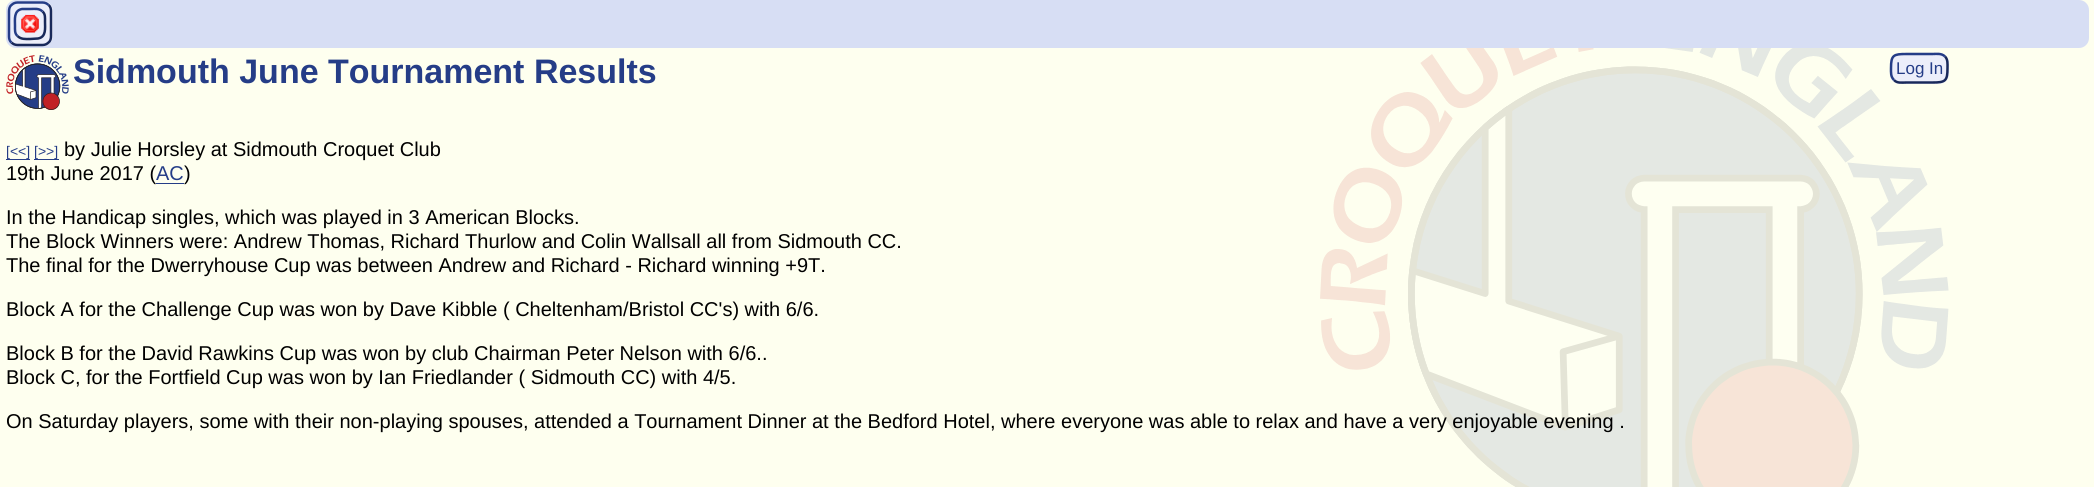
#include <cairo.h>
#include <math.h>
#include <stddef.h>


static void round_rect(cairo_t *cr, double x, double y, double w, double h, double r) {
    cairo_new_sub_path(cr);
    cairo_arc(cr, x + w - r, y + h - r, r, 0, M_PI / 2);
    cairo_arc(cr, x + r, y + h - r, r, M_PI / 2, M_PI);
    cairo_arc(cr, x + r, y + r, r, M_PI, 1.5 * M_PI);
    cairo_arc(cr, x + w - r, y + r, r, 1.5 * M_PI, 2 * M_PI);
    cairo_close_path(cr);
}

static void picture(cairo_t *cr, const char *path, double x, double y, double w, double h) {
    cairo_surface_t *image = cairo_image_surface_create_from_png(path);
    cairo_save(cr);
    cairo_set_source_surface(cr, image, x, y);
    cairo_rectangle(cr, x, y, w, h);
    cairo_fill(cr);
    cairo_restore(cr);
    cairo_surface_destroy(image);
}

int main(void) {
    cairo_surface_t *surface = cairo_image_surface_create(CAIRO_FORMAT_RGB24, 2094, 487);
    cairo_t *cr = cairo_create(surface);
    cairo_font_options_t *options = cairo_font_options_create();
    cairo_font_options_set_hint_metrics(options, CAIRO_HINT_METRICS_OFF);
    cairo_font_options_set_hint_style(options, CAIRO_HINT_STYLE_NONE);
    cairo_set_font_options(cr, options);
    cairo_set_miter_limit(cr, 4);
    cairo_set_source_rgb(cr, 0.996, 1, 0.937);
    cairo_paint(cr);
    picture(cr, "img1.png", 1320, 48, 629, 439);
    cairo_set_source_rgb(cr, 0.843, 0.871, 0.957);
    round_rect(cr, 6, 0, 2083, 48, 10);
    cairo_fill(cr);
    cairo_set_source_rgb(cr, 0.922, 0.933, 0.98);
    round_rect(cr, 8, 1, 45, 45, 10);
    cairo_fill(cr);
    cairo_new_path(cr);
    cairo_move_to(cr, 48.5, 5);
    cairo_curve_to(cr, 50.5, 6.5, 51, 9, 51, 11);
    cairo_line_to(cr, 51, 36);
    cairo_curve_to(cr, 51, 38.5, 50.5, 41, 48.5, 42.5);
    cairo_curve_to(cr, 47, 44, 45, 45, 42.5, 45);
    cairo_line_to(cr, 17.5, 45);
    cairo_curve_to(cr, 15, 45, 13, 44, 11.5, 42.5);
    cairo_set_source_rgb(cr, 0.098, 0.161, 0.353);
    cairo_set_line_width(cr, 2.5);
    cairo_stroke(cr);
    cairo_new_path(cr);
    cairo_move_to(cr, 11.5, 42.5);
    cairo_curve_to(cr, 9.5, 41, 9, 38.5, 9, 36.5);
    cairo_line_to(cr, 9, 11.5);
    cairo_curve_to(cr, 9, 9, 9.5, 6.5, 11.5, 5);
    cairo_curve_to(cr, 13, 3.5, 15, 2.5, 17.5, 2.5);
    cairo_line_to(cr, 42.5, 2.5);
    cairo_curve_to(cr, 45, 2.5, 47, 3.5, 48.5, 5);
    cairo_set_source_rgb(cr, 0.145, 0.239, 0.529);
    cairo_stroke(cr);
    cairo_new_path(cr);
    cairo_move_to(cr, 42.5, 11.5);
    cairo_curve_to(cr, 45.5, 14, 45, 18, 45, 21.5);
    cairo_curve_to(cr, 45, 28, 46.5, 37, 38, 38.5);
    cairo_line_to(cr, 30, 39);
    cairo_curve_to(cr, 25.5, 39, 21, 39.5, 17.5, 36);
    cairo_set_source_rgb(cr, 0.098, 0.161, 0.353);
    cairo_stroke(cr);
    cairo_new_path(cr);
    cairo_move_to(cr, 17.5, 36);
    cairo_curve_to(cr, 14.5, 33.5, 15, 29.5, 15, 26);
    cairo_curve_to(cr, 15, 19.5, 13.5, 10.5, 22, 9);
    cairo_line_to(cr, 30, 9);
    cairo_curve_to(cr, 34.5, 9, 39, 8, 42.5, 11.5);
    cairo_set_source_rgb(cr, 0.145, 0.239, 0.529);
    cairo_stroke(cr);
    picture(cr, "img2.png", 21, 14, 18, 19);
    picture(cr, "img3.png", 6, 55, 63, 55);
    cairo_select_font_face(cr, "Liberation Sans", CAIRO_FONT_SLANT_NORMAL, CAIRO_FONT_WEIGHT_BOLD);
    cairo_set_font_size(cr, 34);
    cairo_move_to(cr, 73, 83);
    cairo_show_text(cr, "Sidmouth June Tournament Results");
    cairo_set_source_rgb(cr, 0.922, 0.933, 0.98);
    round_rect(cr, 1890, 53, 59, 31, 10);
    cairo_fill(cr);
    cairo_new_path(cr);
    cairo_move_to(cr, 1945, 56.5);
    cairo_curve_to(cr, 1948, 59.5, 1947.5, 64, 1947.5, 68);
    cairo_curve_to(cr, 1947.5, 81, 1945.5, 82.5, 1932.5, 82.5);
    cairo_line_to(cr, 1906.5, 82.5);
    cairo_curve_to(cr, 1902, 82.5, 1897, 83.5, 1894, 80);
    cairo_set_source_rgb(cr, 0.098, 0.161, 0.353);
    cairo_stroke(cr);
    cairo_new_path(cr);
    cairo_move_to(cr, 1894, 80);
    cairo_curve_to(cr, 1890.5, 76.5, 1891, 72.5, 1891, 68);
    cairo_curve_to(cr, 1891, 55, 1893.5, 54, 1906.5, 54);
    cairo_line_to(cr, 1932.5, 54);
    cairo_curve_to(cr, 1936.5, 54, 1941.5, 53, 1945, 56.5);
    cairo_set_source_rgb(cr, 0.145, 0.239, 0.529);
    cairo_stroke(cr);
    cairo_select_font_face(cr, "Liberation Sans", CAIRO_FONT_SLANT_NORMAL, CAIRO_FONT_WEIGHT_NORMAL);
    cairo_set_font_size(cr, 17);
    cairo_move_to(cr, 1896, 74);
    cairo_show_text(cr, "Log In");
    cairo_set_font_size(cr, 14);
    cairo_move_to(cr, 6, 156);
    cairo_show_text(cr, "[<<] [>>]");
    cairo_rectangle(cr, 6, 159, 24, 1);
    cairo_fill(cr);
    cairo_set_font_size(cr, 20);
    cairo_set_source_rgb(cr, 0, 0, 0);
    cairo_move_to(cr, 64, 156);
    cairo_show_text(cr, "by Julie Horsley at Sidmouth Croquet Club");
    cairo_set_source_rgb(cr, 0.145, 0.239, 0.529);
    cairo_rectangle(cr, 34, 159, 25, 1);
    cairo_fill(cr);
    cairo_set_source_rgb(cr, 0, 0, 0);
    cairo_move_to(cr, 6, 180);
    cairo_show_text(cr, "19th June 2017 (");
    cairo_set_source_rgb(cr, 0.145, 0.239, 0.529);
    cairo_move_to(cr, 156, 180);
    cairo_show_text(cr, "AC");
    cairo_rectangle(cr, 156, 183, 28, 1);
    cairo_fill(cr);
    cairo_set_source_rgb(cr, 0, 0, 0);
    cairo_move_to(cr, 184, 180);
    cairo_show_text(cr, ")");
    cairo_move_to(cr, 6, 224);
    cairo_show_text(cr, "In the Handicap singles, which was played in 3 American Blocks.");
    cairo_move_to(cr, 6, 248);
    cairo_show_text(cr, "The Block Winners were: Andrew Thomas, Richard Thurlow and Colin Wallsall all from Sidmouth CC.");
    cairo_move_to(cr, 6, 272);
    cairo_show_text(cr, "The final for the Dwerryhouse Cup was between Andrew and Richard - Richard winning +9T.");
    cairo_move_to(cr, 6, 316);
    cairo_show_text(cr, "Block A for the Challenge Cup was won by Dave Kibble ( Cheltenham/Bristol CC's) with 6/6.");
    cairo_move_to(cr, 6, 360);
    cairo_show_text(cr, "Block B for the David Rawkins Cup was won by club Chairman Peter Nelson with 6/6..");
    cairo_move_to(cr, 6, 384);
    cairo_show_text(cr, "Block C, for the Fortfield Cup was won by Ian Friedlander ( Sidmouth CC) with 4/5.");
    cairo_move_to(cr, 6, 428);
    cairo_show_text(cr, "On Saturday players, some with their non-playing spouses, attended a Tournament Dinner at the Bedford Hotel, where everyone was able to relax and have a very enjoyable evening .");
    cairo_surface_write_to_png(surface, "page.png");
    cairo_font_options_destroy(options);
    cairo_destroy(cr);
    cairo_surface_destroy(surface);
    return 0;
}
